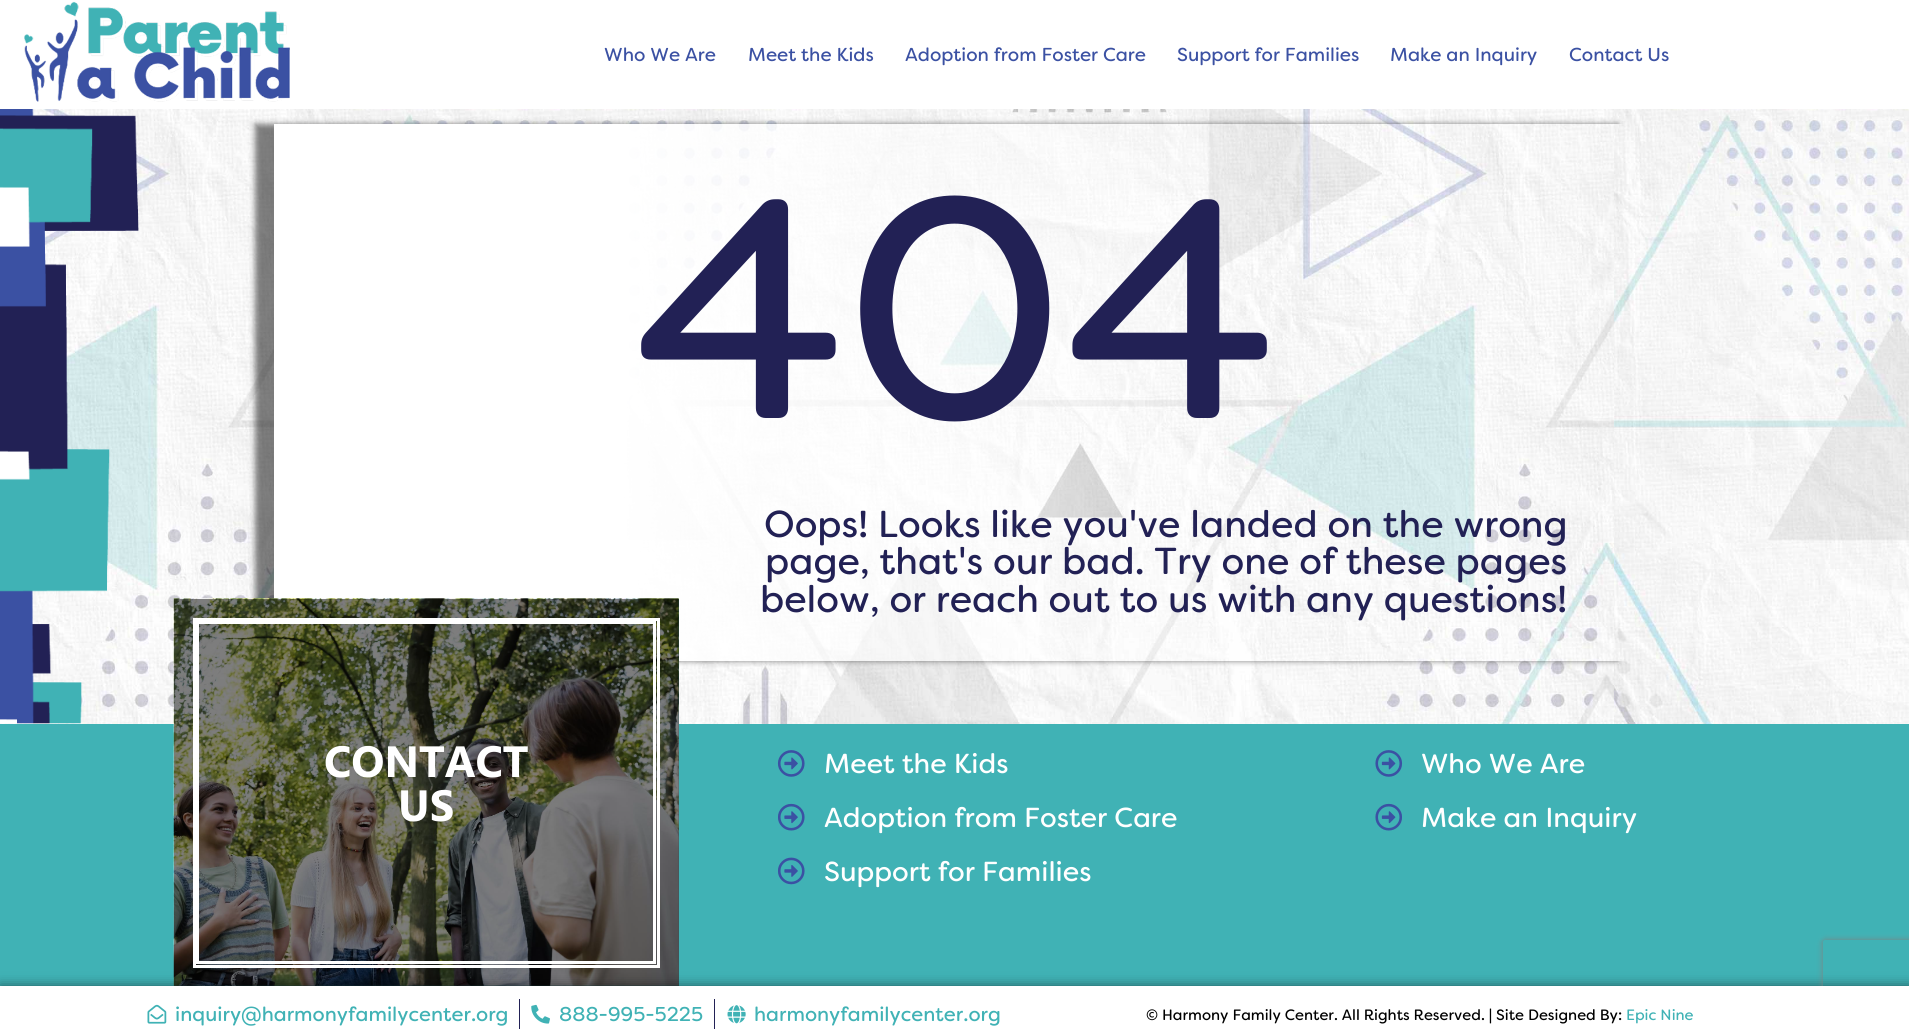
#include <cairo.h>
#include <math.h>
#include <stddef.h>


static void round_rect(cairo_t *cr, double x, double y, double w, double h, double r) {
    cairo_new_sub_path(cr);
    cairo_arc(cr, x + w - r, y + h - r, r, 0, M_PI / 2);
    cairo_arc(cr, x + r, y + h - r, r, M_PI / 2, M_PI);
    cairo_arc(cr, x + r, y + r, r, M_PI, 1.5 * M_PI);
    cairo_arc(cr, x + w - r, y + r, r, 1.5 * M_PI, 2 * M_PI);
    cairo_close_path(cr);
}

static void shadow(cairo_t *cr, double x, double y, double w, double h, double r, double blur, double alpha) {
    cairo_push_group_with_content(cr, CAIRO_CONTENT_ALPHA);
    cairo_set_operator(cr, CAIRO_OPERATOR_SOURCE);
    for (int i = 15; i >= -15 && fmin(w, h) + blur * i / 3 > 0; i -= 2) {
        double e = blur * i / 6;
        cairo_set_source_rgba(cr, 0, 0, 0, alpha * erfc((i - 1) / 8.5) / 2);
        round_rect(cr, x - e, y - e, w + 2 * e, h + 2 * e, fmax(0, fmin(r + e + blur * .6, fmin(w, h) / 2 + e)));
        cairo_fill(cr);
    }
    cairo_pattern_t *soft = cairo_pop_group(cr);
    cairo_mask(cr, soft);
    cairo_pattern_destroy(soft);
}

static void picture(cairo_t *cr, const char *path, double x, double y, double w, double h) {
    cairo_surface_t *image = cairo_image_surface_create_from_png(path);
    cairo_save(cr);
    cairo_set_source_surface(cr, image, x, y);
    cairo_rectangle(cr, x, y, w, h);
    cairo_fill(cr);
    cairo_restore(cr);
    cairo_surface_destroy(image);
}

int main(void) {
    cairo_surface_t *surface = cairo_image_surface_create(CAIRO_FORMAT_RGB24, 1909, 1032);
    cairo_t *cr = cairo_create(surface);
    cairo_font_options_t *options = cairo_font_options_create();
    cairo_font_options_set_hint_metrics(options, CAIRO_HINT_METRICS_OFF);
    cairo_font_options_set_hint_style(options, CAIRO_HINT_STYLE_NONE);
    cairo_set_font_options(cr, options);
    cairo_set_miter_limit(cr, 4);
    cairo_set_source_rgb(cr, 1, 1, 1);
    cairo_paint(cr);
    picture(cr, "img1.png", 0, 109, 1909, 615);
    picture(cr, "img2.png", 24, 1, 266, 101);
    cairo_select_font_face(cr, "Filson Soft", CAIRO_FONT_SLANT_NORMAL, CAIRO_FONT_WEIGHT_NORMAL);
    cairo_set_font_size(cr, 18.75);
    cairo_set_source_rgb(cr, 0.231, 0.318, 0.639);
    cairo_move_to(cr, 604, 61);
    cairo_show_text(cr, "Who We Are");
    cairo_move_to(cr, 748, 61);
    cairo_show_text(cr, "Meet the Kids");
    cairo_move_to(cr, 905, 61);
    cairo_show_text(cr, "Adoption from Foster Care");
    cairo_move_to(cr, 1177, 61);
    cairo_show_text(cr, "Support for Families");
    cairo_move_to(cr, 1390, 61);
    cairo_show_text(cr, "Make an Inquiry");
    cairo_move_to(cr, 1569, 61);
    cairo_show_text(cr, "Contact Us");
    picture(cr, "img3.png", 0, 109, 139, 615);
    cairo_save(cr);
    cairo_set_fill_rule(cr, CAIRO_FILL_RULE_EVEN_ODD);
    cairo_new_path(cr);
    cairo_move_to(cr, 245, 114);
    cairo_line_to(cr, 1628, 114);
    cairo_line_to(cr, 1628, 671);
    cairo_line_to(cr, 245, 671);
    cairo_close_path(cr);
    cairo_move_to(cr, 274, 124);
    cairo_line_to(cr, 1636, 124);
    cairo_line_to(cr, 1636, 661);
    cairo_line_to(cr, 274, 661);
    cairo_close_path(cr);
    cairo_clip(cr);
    cairo_set_source_rgb(cr, 0, 0, 0);
    shadow(cr, 255, 124, 1363, 537, 0, 3, 0.5);
    cairo_restore(cr);
    cairo_set_font_size(cr, 312.5);
    cairo_set_source_rgb(cr, 0.133, 0.129, 0.333);
    cairo_move_to(cr, 634, 418);
    cairo_show_text(cr, "404");
    cairo_set_font_size(cr, 37.5);
    cairo_move_to(cr, 764, 537);
    cairo_show_text(cr, "Oops! Looks like you've landed on the wrong");
    cairo_move_to(cr, 765, 574);
    cairo_show_text(cr, "page, that's our bad. Try one of these pages");
    cairo_move_to(cr, 760, 612);
    cairo_show_text(cr, "below, or reach out to us with any questions!");
    cairo_set_source_rgb(cr, 0.251, 0.698, 0.71);
    cairo_rectangle(cr, 0, 724, 1909, 262);
    cairo_fill(cr);
    cairo_rectangle(cr, 174, 599, 505, 125);
    cairo_fill(cr);
    picture(cr, "img4.png", 173, 598, 506, 388);
    cairo_set_source_rgba(cr, 0, 0, 0, 0.5);
    cairo_rectangle(cr, 174, 599, 505, 387);
    cairo_fill(cr);
    cairo_rectangle(cr, 194.5, 619.5, 464, 347);
    cairo_set_source_rgb(cr, 1, 1, 1);
    cairo_set_line_width(cr, 3);
    cairo_stroke(cr);
    cairo_rectangle(cr, 197.5, 622.5, 457, 340);
    cairo_stroke(cr);
    cairo_select_font_face(cr, "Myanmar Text", CAIRO_FONT_SLANT_NORMAL, CAIRO_FONT_WEIGHT_BOLD);
    cairo_set_font_size(cr, 43.75);
    cairo_move_to(cr, 324, 777);
    cairo_show_text(cr, "CONTACT");
    cairo_move_to(cr, 398, 821);
    cairo_show_text(cr, "US");
    picture(cr, "img5.png", 777, 750, 28, 27);
    cairo_select_font_face(cr, "Filson Soft", CAIRO_FONT_SLANT_NORMAL, CAIRO_FONT_WEIGHT_NORMAL);
    cairo_set_font_size(cr, 27.5);
    cairo_move_to(cr, 824, 773);
    cairo_show_text(cr, "Meet the Kids");
    picture(cr, "img6.png", 778, 803, 27, 28);
    cairo_move_to(cr, 824, 827);
    cairo_show_text(cr, "Adoption from Foster Care");
    picture(cr, "img7.png", 778, 857, 27, 28);
    cairo_move_to(cr, 824, 881);
    cairo_show_text(cr, "Support for Families");
    picture(cr, "img8.png", 1375, 750, 28, 27);
    cairo_move_to(cr, 1421, 773);
    cairo_show_text(cr, "Who We Are");
    picture(cr, "img9.png", 1375, 803, 27, 28);
    cairo_move_to(cr, 1421, 827);
    cairo_show_text(cr, "Make an Inquiry");
    cairo_set_source_rgb(cr, 0, 0, 0);
    shadow(cr, 0, 986, 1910, 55, 0, 6, 0.5);
    cairo_save(cr);
    cairo_set_fill_rule(cr, CAIRO_FILL_RULE_EVEN_ODD);
    cairo_new_path(cr);
    cairo_move_to(cr, 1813, 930);
    cairo_line_to(cr, 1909, 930);
    cairo_line_to(cr, 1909, 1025);
    cairo_line_to(cr, 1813, 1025);
    cairo_close_path(cr);
    cairo_move_to(cr, 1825.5, 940);
    cairo_line_to(cr, 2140.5, 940);
    cairo_curve_to(cr, 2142, 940, 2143, 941, 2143, 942.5);
    cairo_line_to(cr, 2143, 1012.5);
    cairo_curve_to(cr, 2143, 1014, 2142, 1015, 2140.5, 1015);
    cairo_line_to(cr, 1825.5, 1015);
    cairo_curve_to(cr, 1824, 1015, 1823, 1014, 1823, 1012.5);
    cairo_line_to(cr, 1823, 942.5);
    cairo_curve_to(cr, 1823, 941, 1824, 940, 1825.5, 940);
    cairo_close_path(cr);
    cairo_clip(cr);
    cairo_set_source_rgb(cr, 0.502, 0.502, 0.502);
    shadow(cr, 1823, 940, 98, 75, 2.5, 3, 1);
    cairo_restore(cr);
    cairo_set_source_rgb(cr, 1, 1, 1);
    cairo_rectangle(cr, 0, 986, 1909, 46);
    cairo_fill(cr);
    picture(cr, "img10.png", 147, 1004, 20, 20);
    cairo_set_font_size(cr, 20);
    cairo_set_source_rgb(cr, 0.251, 0.698, 0.71);
    cairo_move_to(cr, 175, 1021);
    cairo_show_text(cr, "inquiry@harmonyfamilycenter.org");
    cairo_set_source_rgb(cr, 0.133, 0.129, 0.333);
    cairo_rectangle(cr, 519, 999, 1, 30);
    cairo_fill(cr);
    picture(cr, "img11.png", 531, 1004, 19, 20);
    cairo_set_source_rgb(cr, 0.251, 0.698, 0.71);
    cairo_move_to(cr, 559, 1021);
    cairo_show_text(cr, "888-995-5225");
    cairo_set_source_rgb(cr, 0.133, 0.129, 0.333);
    cairo_rectangle(cr, 714, 999, 1, 30);
    cairo_fill(cr);
    picture(cr, "img12.png", 727, 1005, 19, 19);
    cairo_set_source_rgb(cr, 0.251, 0.698, 0.71);
    cairo_move_to(cr, 754, 1021);
    cairo_show_text(cr, "harmonyfamilycenter.org");
    cairo_set_font_size(cr, 15);
    cairo_set_source_rgb(cr, 0, 0, 0);
    cairo_move_to(cr, 1146, 1020);
    cairo_show_text(cr, "© Harmony Family Center. All Rights Reserved. | Site Designed By:");
    cairo_set_source_rgb(cr, 0.251, 0.698, 0.71);
    cairo_move_to(cr, 1626, 1020);
    cairo_show_text(cr, "Epic Nine");
    cairo_surface_write_to_png(surface, "page.png");
    cairo_font_options_destroy(options);
    cairo_destroy(cr);
    cairo_surface_destroy(surface);
    return 0;
}
